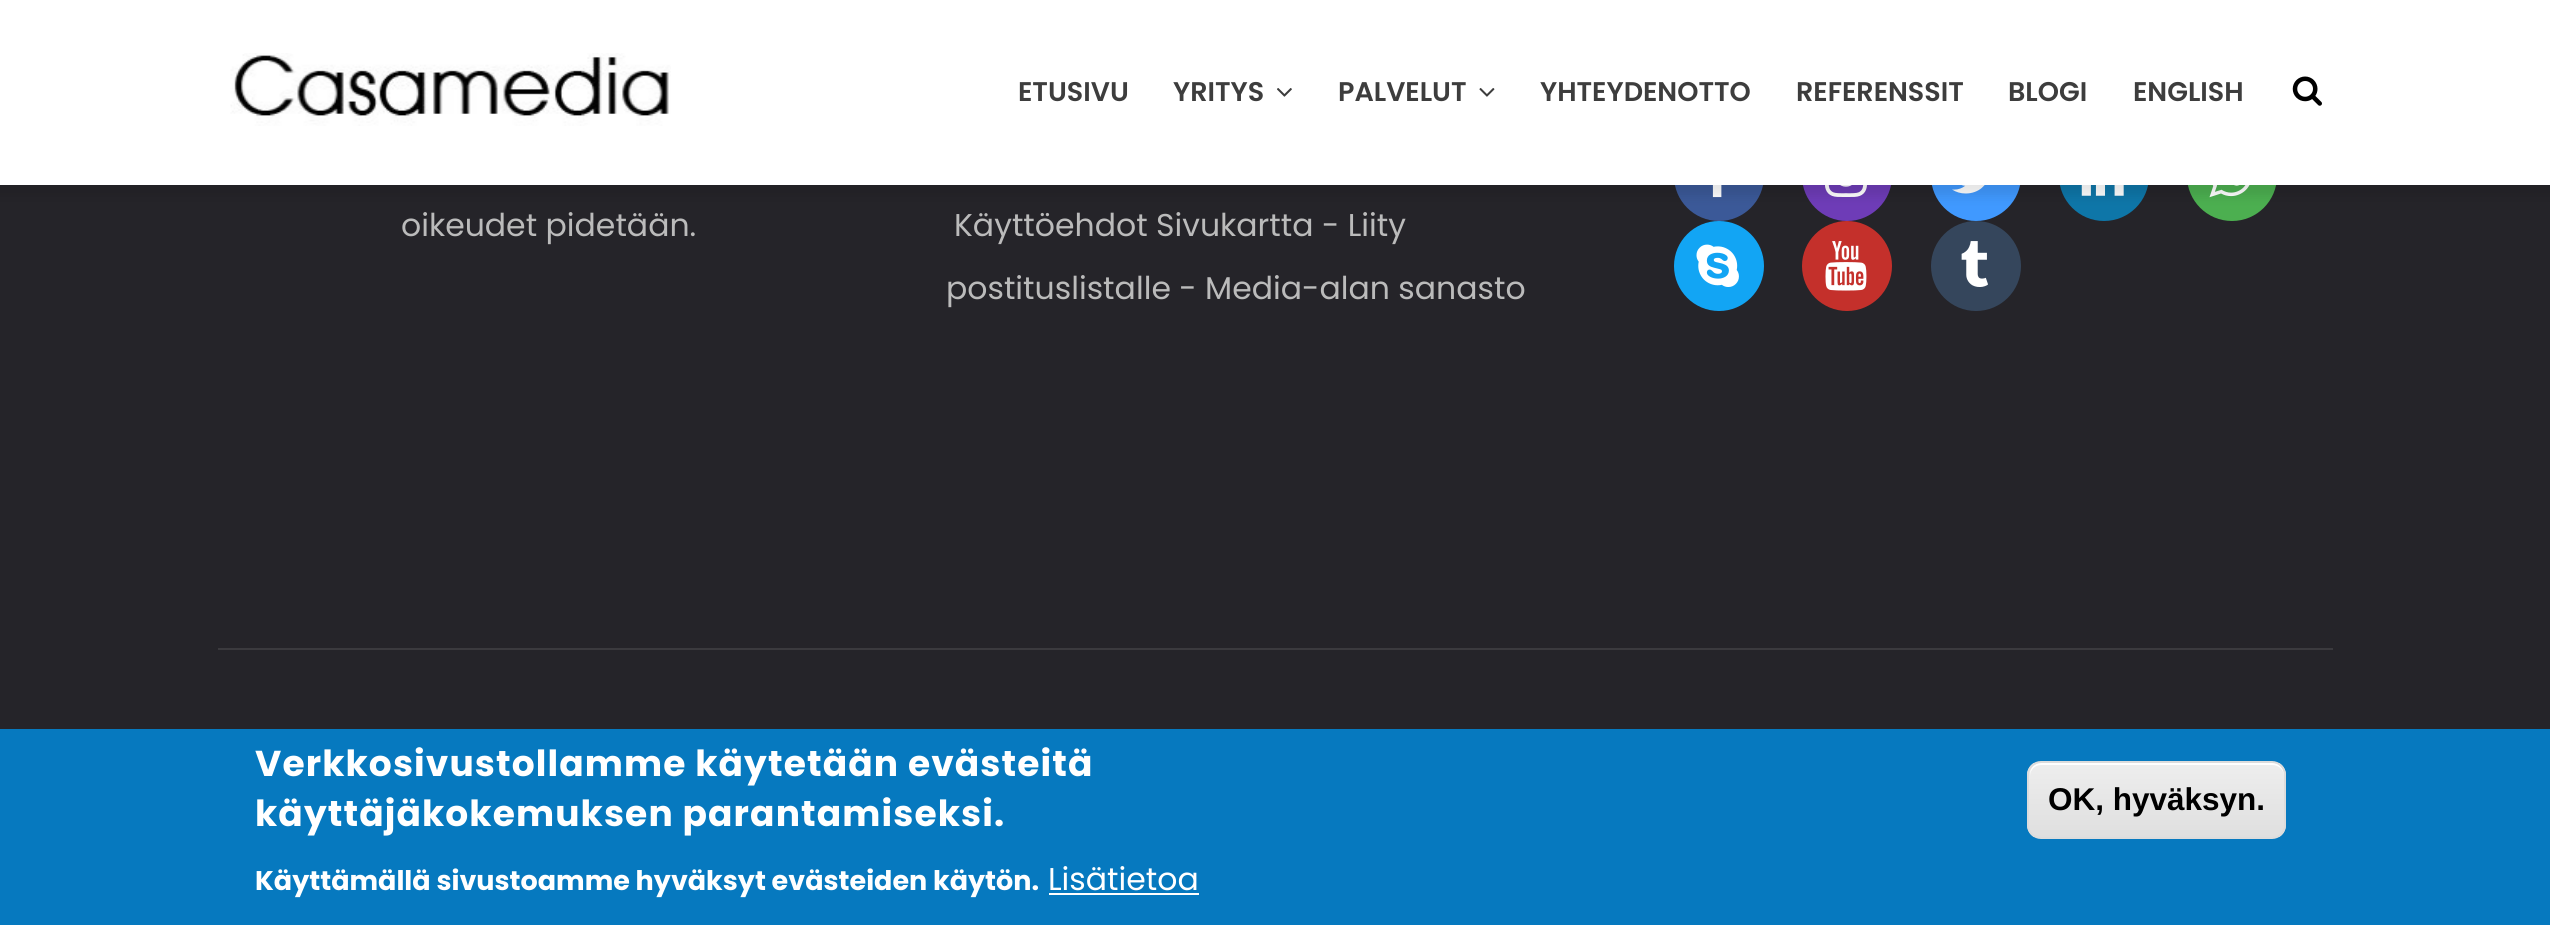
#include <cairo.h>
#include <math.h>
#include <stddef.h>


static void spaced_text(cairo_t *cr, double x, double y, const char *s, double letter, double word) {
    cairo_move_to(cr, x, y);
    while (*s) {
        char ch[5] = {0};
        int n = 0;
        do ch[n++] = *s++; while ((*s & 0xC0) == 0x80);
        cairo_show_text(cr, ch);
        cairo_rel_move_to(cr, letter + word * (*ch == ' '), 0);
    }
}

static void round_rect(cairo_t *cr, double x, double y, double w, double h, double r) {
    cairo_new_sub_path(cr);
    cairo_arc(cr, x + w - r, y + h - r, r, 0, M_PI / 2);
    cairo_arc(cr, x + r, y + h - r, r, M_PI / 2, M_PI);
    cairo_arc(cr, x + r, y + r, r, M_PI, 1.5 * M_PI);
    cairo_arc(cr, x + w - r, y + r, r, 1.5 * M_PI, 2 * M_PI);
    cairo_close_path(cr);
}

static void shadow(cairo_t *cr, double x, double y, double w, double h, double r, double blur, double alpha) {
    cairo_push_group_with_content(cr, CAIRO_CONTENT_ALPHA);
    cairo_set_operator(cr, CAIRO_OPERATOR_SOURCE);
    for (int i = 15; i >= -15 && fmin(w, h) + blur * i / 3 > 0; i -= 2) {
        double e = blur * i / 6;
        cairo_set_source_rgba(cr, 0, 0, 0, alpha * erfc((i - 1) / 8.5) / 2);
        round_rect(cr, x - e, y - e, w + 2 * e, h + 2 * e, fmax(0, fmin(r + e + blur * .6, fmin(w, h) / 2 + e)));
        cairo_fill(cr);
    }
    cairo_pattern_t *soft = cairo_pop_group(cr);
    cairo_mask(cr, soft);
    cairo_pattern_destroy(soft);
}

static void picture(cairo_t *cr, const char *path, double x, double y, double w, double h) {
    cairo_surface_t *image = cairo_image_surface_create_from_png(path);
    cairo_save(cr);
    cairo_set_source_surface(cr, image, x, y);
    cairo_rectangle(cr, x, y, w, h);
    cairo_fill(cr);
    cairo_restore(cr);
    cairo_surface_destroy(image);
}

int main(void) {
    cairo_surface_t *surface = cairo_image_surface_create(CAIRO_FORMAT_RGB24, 2550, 925);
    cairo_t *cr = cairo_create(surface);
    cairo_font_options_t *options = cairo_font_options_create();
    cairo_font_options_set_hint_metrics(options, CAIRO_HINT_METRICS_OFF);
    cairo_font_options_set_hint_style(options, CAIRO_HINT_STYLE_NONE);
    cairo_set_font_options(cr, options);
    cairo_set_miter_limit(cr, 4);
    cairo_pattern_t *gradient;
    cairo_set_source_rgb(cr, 0.145, 0.141, 0.161);
    cairo_paint(cr);
    cairo_set_source_rgb(cr, 0.231, 0.349, 0.596);
    cairo_arc(cr, 1719, 176, 45, 0, 2 * M_PI);
    cairo_fill(cr);
    picture(cr, "img5.png", 1712, 185, 10, 13);
    cairo_set_source_rgb(cr, 0.431, 0.235, 0.718);
    cairo_arc(cr, 1847, 176, 45, 0, 2 * M_PI);
    cairo_fill(cr);
    picture(cr, "img6.png", 1825, 185, 42, 12);
    cairo_set_source_rgb(cr, 0.251, 0.6, 1);
    cairo_arc(cr, 1976, 176, 45, 0, 2 * M_PI);
    cairo_fill(cr);
    picture(cr, "img7.png", 1952, 185, 33, 9);
    cairo_set_source_rgb(cr, 0.055, 0.463, 0.659);
    cairo_arc(cr, 2104, 176, 45, 0, 2 * M_PI);
    cairo_fill(cr);
    picture(cr, "img8.png", 2081, 185, 43, 11);
    cairo_set_source_rgb(cr, 0.298, 0.686, 0.314);
    cairo_arc(cr, 2232, 176, 45, 0, 2 * M_PI);
    cairo_fill(cr);
    picture(cr, "img9.png", 2209, 185, 41, 13);
    cairo_set_source_rgb(cr, 0, 0, 0);
    shadow(cr, -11, -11, 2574, 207, 0, 5.5, 0.1);
    cairo_set_source_rgb(cr, 1, 1, 1);
    cairo_rectangle(cr, 0, 0, 2550, 185);
    cairo_fill(cr);
    picture(cr, "img1.png", 230, 53, 441, 73);
    cairo_select_font_face(cr, "Poppins SemiBold", CAIRO_FONT_SLANT_NORMAL, CAIRO_FONT_WEIGHT_NORMAL);
    cairo_set_font_size(cr, 27);
    cairo_set_source_rgb(cr, 0.239, 0.239, 0.239);
    cairo_move_to(cr, 1018, 101);
    cairo_show_text(cr, "ETUSIVU");
    cairo_move_to(cr, 1173, 101);
    cairo_show_text(cr, "YRITYS");
    picture(cr, "img2.png", 1277, 88, 15, 9);
    cairo_move_to(cr, 1338, 101);
    cairo_show_text(cr, "PALVELUT");
    picture(cr, "img3.png", 1479, 88, 16, 9);
    cairo_move_to(cr, 1540, 101);
    cairo_show_text(cr, "YHTEYDENOTTO");
    cairo_move_to(cr, 1796, 101);
    cairo_show_text(cr, "REFERENSSIT");
    cairo_move_to(cr, 2008, 101);
    cairo_show_text(cr, "BLOGI");
    cairo_move_to(cr, 2133, 101);
    cairo_show_text(cr, "ENGLISH");
    picture(cr, "img4.png", 2292, 76, 30, 30);
    cairo_set_source_rgb(cr, 0.231, 0.227, 0.243);
    cairo_rectangle(cr, 218, 648, 2115, 2);
    cairo_fill(cr);
    cairo_select_font_face(cr, "Poppins", CAIRO_FONT_SLANT_NORMAL, CAIRO_FONT_WEIGHT_NORMAL);
    cairo_set_font_size(cr, 31.5);
    cairo_set_source_rgb(cr, 0.733, 0.733, 0.733);
    cairo_move_to(cr, 401, 236);
    cairo_show_text(cr, "oikeudet pidetään.");
    cairo_move_to(cr, 954, 236);
    cairo_show_text(cr, "Käyttöehdot Sivukartta - Liity");
    cairo_move_to(cr, 946, 299);
    cairo_show_text(cr, "postituslistalle - Media-alan sanasto");
    cairo_set_source_rgb(cr, 0.071, 0.647, 0.957);
    cairo_new_path(cr);
    cairo_arc(cr, 1719, 266, 45, 0, 2 * M_PI);
    cairo_fill(cr);
    picture(cr, "img10.png", 1696, 244, 43, 43);
    cairo_set_source_rgb(cr, 0.769, 0.188, 0.169);
    cairo_arc(cr, 1847, 266, 45, 0, 2 * M_PI);
    cairo_fill(cr);
    picture(cr, "img11.png", 1825, 241, 42, 50);
    cairo_set_source_rgb(cr, 0.208, 0.275, 0.361);
    cairo_arc(cr, 1976, 266, 45, 0, 2 * M_PI);
    cairo_fill(cr);
    picture(cr, "img12.png", 1961, 241, 27, 46);
    cairo_set_source_rgb(cr, 0.027, 0.475, 0.749);
    cairo_rectangle(cr, 0, 729, 2550, 196);
    cairo_fill(cr);
    cairo_select_font_face(cr, "Poppins", CAIRO_FONT_SLANT_NORMAL, CAIRO_FONT_WEIGHT_BOLD);
    cairo_set_font_size(cr, 36);
    cairo_set_source_rgb(cr, 1, 1, 1);
    spaced_text(cr, 255, 776, "Verkkosivustollamme käytetään evästeitä", 1.1, 0);
    spaced_text(cr, 255, 826, "käyttäjäkokemuksen parantamiseksi.", 1.1, 0);
    cairo_set_font_size(cr, 27);
    cairo_move_to(cr, 255, 890);
    cairo_show_text(cr, "Käyttämällä sivustoamme hyväksyt evästeiden käytön.");
    cairo_select_font_face(cr, "Poppins", CAIRO_FONT_SLANT_NORMAL, CAIRO_FONT_WEIGHT_NORMAL);
    cairo_set_font_size(cr, 31.5);
    cairo_move_to(cr, 1048, 890);
    cairo_show_text(cr, "Lisätietoa");
    cairo_rectangle(cr, 1049, 893, 150, 2);
    cairo_fill(cr);
    cairo_save(cr);
    round_rect(cr, 2027, 761, 259, 78, 14);
    cairo_clip(cr);
    gradient = cairo_pattern_create_linear(2157, 763, 2157, 837);
    cairo_pattern_add_color_stop_rgba(gradient, 0.05, 0.929, 0.929, 0.929, 1);
    cairo_pattern_add_color_stop_rgba(gradient, 1, 0.875, 0.875, 0.875, 1);
    cairo_set_source(cr, gradient);
    cairo_pattern_destroy(gradient);
    cairo_rectangle(cr, 2027, 763, 259, 74);
    cairo_fill(cr);
    cairo_restore(cr);
    cairo_new_path(cr);
    cairo_move_to(cr, 2041, 765);
    cairo_line_to(cr, 2272, 765);
    cairo_curve_to(cr, 2279, 765, 2284, 770, 2284, 776);
    cairo_line_to(cr, 2284, 774);
    cairo_curve_to(cr, 2284, 768, 2279, 763, 2273, 763);
    cairo_line_to(cr, 2041, 763);
    cairo_curve_to(cr, 2035, 763, 2030, 768, 2030, 774);
    cairo_line_to(cr, 2030, 776);
    cairo_curve_to(cr, 2030, 770, 2035, 765, 2041, 765);
    cairo_close_path(cr);
    cairo_fill(cr);
    round_rect(cr, 2028, 762, 257, 76, 13);
    cairo_set_source_rgb(cr, 0.863, 0.863, 0.863);
    cairo_stroke(cr);
    cairo_select_font_face(cr, "Liberation Sans", CAIRO_FONT_SLANT_NORMAL, CAIRO_FONT_WEIGHT_BOLD);
    cairo_set_source_rgb(cr, 0, 0, 0);
    cairo_move_to(cr, 2048, 810);
    cairo_show_text(cr, "OK, hyväksyn.");
    cairo_surface_write_to_png(surface, "page.png");
    cairo_font_options_destroy(options);
    cairo_destroy(cr);
    cairo_surface_destroy(surface);
    return 0;
}
